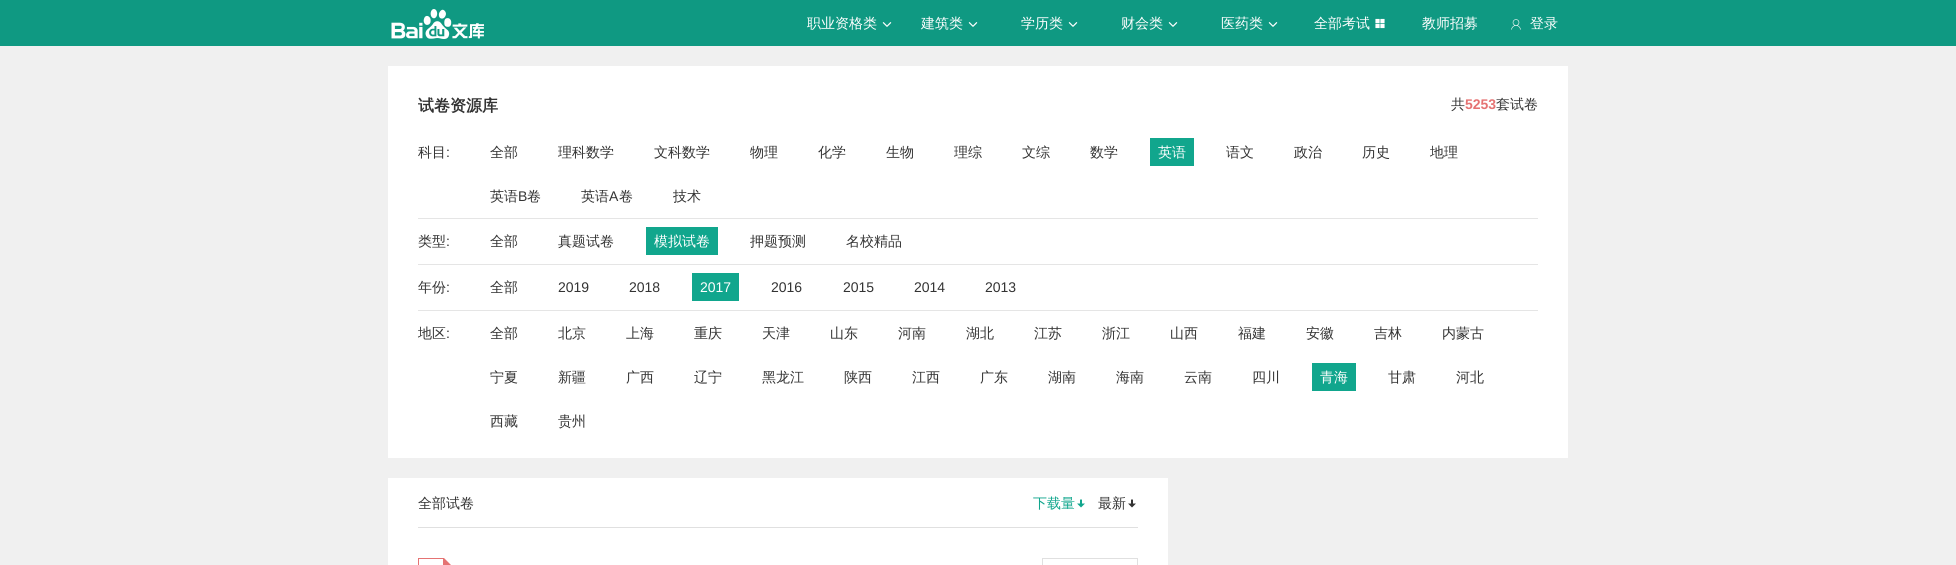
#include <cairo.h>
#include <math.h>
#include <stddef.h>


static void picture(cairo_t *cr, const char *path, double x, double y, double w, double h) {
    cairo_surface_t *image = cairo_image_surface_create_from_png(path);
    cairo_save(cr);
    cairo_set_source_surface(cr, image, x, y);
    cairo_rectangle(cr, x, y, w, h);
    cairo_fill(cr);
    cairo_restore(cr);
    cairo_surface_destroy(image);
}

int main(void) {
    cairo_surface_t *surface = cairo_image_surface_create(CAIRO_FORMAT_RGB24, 1956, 565);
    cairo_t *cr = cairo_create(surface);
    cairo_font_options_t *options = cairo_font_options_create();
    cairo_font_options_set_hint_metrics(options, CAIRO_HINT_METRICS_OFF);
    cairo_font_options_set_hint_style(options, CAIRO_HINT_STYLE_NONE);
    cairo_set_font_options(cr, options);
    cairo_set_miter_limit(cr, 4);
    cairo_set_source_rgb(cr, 0.941, 0.941, 0.941);
    cairo_paint(cr);
    cairo_set_source_rgb(cr, 0.059, 0.6, 0.51);
    cairo_rectangle(cr, 0, 0, 1956, 46);
    cairo_fill(cr);
    picture(cr, "img1.png", 391, 9, 93, 30);
    cairo_select_font_face(cr, "WenQuanYi Zen Hei Medium", CAIRO_FONT_SLANT_NORMAL, CAIRO_FONT_WEIGHT_NORMAL);
    cairo_set_font_size(cr, 14);
    cairo_set_source_rgb(cr, 1, 1, 1);
    cairo_move_to(cr, 807, 28);
    cairo_show_text(cr, "职业资格类");
    picture(cr, "img2.png", 882, 22, 10, 5);
    cairo_move_to(cr, 921, 28);
    cairo_show_text(cr, "建筑类");
    picture(cr, "img2.png", 968, 22, 10, 5);
    cairo_move_to(cr, 1021, 28);
    cairo_show_text(cr, "学历类");
    picture(cr, "img2.png", 1068, 22, 10, 5);
    cairo_move_to(cr, 1121, 28);
    cairo_show_text(cr, "财会类");
    picture(cr, "img2.png", 1168, 22, 10, 5);
    cairo_move_to(cr, 1221, 28);
    cairo_show_text(cr, "医药类");
    picture(cr, "img2.png", 1268, 22, 10, 5);
    cairo_move_to(cr, 1314, 28);
    cairo_show_text(cr, "全部考试");
    picture(cr, "img3.png", 1375, 18, 10, 11);
    cairo_move_to(cr, 1422, 28);
    cairo_show_text(cr, "教师招募");
    picture(cr, "img4.png", 1511, 19, 10, 11);
    cairo_move_to(cr, 1530, 28);
    cairo_show_text(cr, "登录");
    cairo_rectangle(cr, 388, 66, 1180, 392);
    cairo_fill(cr);
    cairo_select_font_face(cr, "WenQuanYi Zen Hei", CAIRO_FONT_SLANT_NORMAL, CAIRO_FONT_WEIGHT_BOLD);
    cairo_set_font_size(cr, 16);
    cairo_set_source_rgb(cr, 0.2, 0.2, 0.2);
    cairo_move_to(cr, 418, 111);
    cairo_show_text(cr, "试卷资源库");
    cairo_select_font_face(cr, "WenQuanYi Zen Hei Medium", CAIRO_FONT_SLANT_NORMAL, CAIRO_FONT_WEIGHT_NORMAL);
    cairo_set_font_size(cr, 14);
    cairo_move_to(cr, 1451, 109);
    cairo_show_text(cr, "共");
    cairo_select_font_face(cr, "Liberation Sans", CAIRO_FONT_SLANT_NORMAL, CAIRO_FONT_WEIGHT_BOLD);
    cairo_set_source_rgb(cr, 0.898, 0.451, 0.451);
    cairo_move_to(cr, 1465, 109);
    cairo_show_text(cr, "5253");
    cairo_select_font_face(cr, "WenQuanYi Zen Hei Medium", CAIRO_FONT_SLANT_NORMAL, CAIRO_FONT_WEIGHT_NORMAL);
    cairo_set_source_rgb(cr, 0.2, 0.2, 0.2);
    cairo_move_to(cr, 1496, 109);
    cairo_show_text(cr, "套试卷");
    cairo_set_source_rgb(cr, 0.898, 0.898, 0.898);
    cairo_rectangle(cr, 418, 218, 1120, 1);
    cairo_fill(cr);
    cairo_set_source_rgb(cr, 0.2, 0.2, 0.2);
    cairo_move_to(cr, 418, 157);
    cairo_show_text(cr, "科目");
    cairo_select_font_face(cr, "Liberation Sans", CAIRO_FONT_SLANT_NORMAL, CAIRO_FONT_WEIGHT_NORMAL);
    cairo_move_to(cr, 446, 157);
    cairo_show_text(cr, ":");
    cairo_select_font_face(cr, "WenQuanYi Zen Hei Medium", CAIRO_FONT_SLANT_NORMAL, CAIRO_FONT_WEIGHT_NORMAL);
    cairo_move_to(cr, 490, 157);
    cairo_show_text(cr, "全部");
    cairo_move_to(cr, 558, 157);
    cairo_show_text(cr, "理科数学");
    cairo_move_to(cr, 654, 157);
    cairo_show_text(cr, "文科数学");
    cairo_move_to(cr, 750, 157);
    cairo_show_text(cr, "物理");
    cairo_move_to(cr, 818, 157);
    cairo_show_text(cr, "化学");
    cairo_move_to(cr, 886, 157);
    cairo_show_text(cr, "生物");
    cairo_move_to(cr, 954, 157);
    cairo_show_text(cr, "理综");
    cairo_move_to(cr, 1022, 157);
    cairo_show_text(cr, "文综");
    cairo_move_to(cr, 1090, 157);
    cairo_show_text(cr, "数学");
    cairo_set_source_rgb(cr, 0.067, 0.651, 0.553);
    cairo_rectangle(cr, 1150, 138, 44, 28);
    cairo_fill(cr);
    cairo_set_source_rgb(cr, 1, 1, 1);
    cairo_move_to(cr, 1158, 157);
    cairo_show_text(cr, "英语");
    cairo_set_source_rgb(cr, 0.2, 0.2, 0.2);
    cairo_move_to(cr, 1226, 157);
    cairo_show_text(cr, "语文");
    cairo_move_to(cr, 1294, 157);
    cairo_show_text(cr, "政治");
    cairo_move_to(cr, 1362, 157);
    cairo_show_text(cr, "历史");
    cairo_move_to(cr, 1430, 157);
    cairo_show_text(cr, "地理");
    cairo_move_to(cr, 490, 201);
    cairo_show_text(cr, "英语");
    cairo_select_font_face(cr, "Liberation Sans", CAIRO_FONT_SLANT_NORMAL, CAIRO_FONT_WEIGHT_NORMAL);
    cairo_move_to(cr, 518, 201);
    cairo_show_text(cr, "B");
    cairo_select_font_face(cr, "WenQuanYi Zen Hei Medium", CAIRO_FONT_SLANT_NORMAL, CAIRO_FONT_WEIGHT_NORMAL);
    cairo_move_to(cr, 527, 201);
    cairo_show_text(cr, "卷");
    cairo_move_to(cr, 581, 201);
    cairo_show_text(cr, "英语");
    cairo_select_font_face(cr, "Liberation Sans", CAIRO_FONT_SLANT_NORMAL, CAIRO_FONT_WEIGHT_NORMAL);
    cairo_move_to(cr, 609, 201);
    cairo_show_text(cr, "A");
    cairo_select_font_face(cr, "WenQuanYi Zen Hei Medium", CAIRO_FONT_SLANT_NORMAL, CAIRO_FONT_WEIGHT_NORMAL);
    cairo_move_to(cr, 619, 201);
    cairo_show_text(cr, "卷");
    cairo_move_to(cr, 673, 201);
    cairo_show_text(cr, "技术");
    cairo_set_source_rgb(cr, 0.898, 0.898, 0.898);
    cairo_rectangle(cr, 418, 264, 1120, 1);
    cairo_fill(cr);
    cairo_set_source_rgb(cr, 0.2, 0.2, 0.2);
    cairo_move_to(cr, 418, 246);
    cairo_show_text(cr, "类型");
    cairo_select_font_face(cr, "Liberation Sans", CAIRO_FONT_SLANT_NORMAL, CAIRO_FONT_WEIGHT_NORMAL);
    cairo_move_to(cr, 446, 246);
    cairo_show_text(cr, ":");
    cairo_select_font_face(cr, "WenQuanYi Zen Hei Medium", CAIRO_FONT_SLANT_NORMAL, CAIRO_FONT_WEIGHT_NORMAL);
    cairo_move_to(cr, 490, 246);
    cairo_show_text(cr, "全部");
    cairo_move_to(cr, 558, 246);
    cairo_show_text(cr, "真题试卷");
    cairo_set_source_rgb(cr, 0.067, 0.651, 0.553);
    cairo_rectangle(cr, 646, 227, 72, 28);
    cairo_fill(cr);
    cairo_set_source_rgb(cr, 1, 1, 1);
    cairo_move_to(cr, 654, 246);
    cairo_show_text(cr, "模拟试卷");
    cairo_set_source_rgb(cr, 0.2, 0.2, 0.2);
    cairo_move_to(cr, 750, 246);
    cairo_show_text(cr, "押题预测");
    cairo_move_to(cr, 846, 246);
    cairo_show_text(cr, "名校精品");
    cairo_set_source_rgb(cr, 0.898, 0.898, 0.898);
    cairo_rectangle(cr, 418, 310, 1120, 1);
    cairo_fill(cr);
    cairo_set_source_rgb(cr, 0.2, 0.2, 0.2);
    cairo_move_to(cr, 418, 292);
    cairo_show_text(cr, "年份");
    cairo_select_font_face(cr, "Liberation Sans", CAIRO_FONT_SLANT_NORMAL, CAIRO_FONT_WEIGHT_NORMAL);
    cairo_move_to(cr, 446, 292);
    cairo_show_text(cr, ":");
    cairo_select_font_face(cr, "WenQuanYi Zen Hei Medium", CAIRO_FONT_SLANT_NORMAL, CAIRO_FONT_WEIGHT_NORMAL);
    cairo_move_to(cr, 490, 292);
    cairo_show_text(cr, "全部");
    cairo_select_font_face(cr, "Liberation Sans", CAIRO_FONT_SLANT_NORMAL, CAIRO_FONT_WEIGHT_NORMAL);
    cairo_move_to(cr, 558, 292);
    cairo_show_text(cr, "2019");
    cairo_move_to(cr, 629, 292);
    cairo_show_text(cr, "2018");
    cairo_set_source_rgb(cr, 0.067, 0.651, 0.553);
    cairo_rectangle(cr, 692, 273, 47, 28);
    cairo_fill(cr);
    cairo_set_source_rgb(cr, 1, 1, 1);
    cairo_move_to(cr, 700, 292);
    cairo_show_text(cr, "2017");
    cairo_set_source_rgb(cr, 0.2, 0.2, 0.2);
    cairo_move_to(cr, 771, 292);
    cairo_show_text(cr, "2016");
    cairo_move_to(cr, 843, 292);
    cairo_show_text(cr, "2015");
    cairo_move_to(cr, 914, 292);
    cairo_show_text(cr, "2014");
    cairo_move_to(cr, 985, 292);
    cairo_show_text(cr, "2013");
    cairo_select_font_face(cr, "WenQuanYi Zen Hei Medium", CAIRO_FONT_SLANT_NORMAL, CAIRO_FONT_WEIGHT_NORMAL);
    cairo_move_to(cr, 418, 338);
    cairo_show_text(cr, "地区");
    cairo_select_font_face(cr, "Liberation Sans", CAIRO_FONT_SLANT_NORMAL, CAIRO_FONT_WEIGHT_NORMAL);
    cairo_move_to(cr, 446, 338);
    cairo_show_text(cr, ":");
    cairo_select_font_face(cr, "WenQuanYi Zen Hei Medium", CAIRO_FONT_SLANT_NORMAL, CAIRO_FONT_WEIGHT_NORMAL);
    cairo_move_to(cr, 490, 338);
    cairo_show_text(cr, "全部");
    cairo_move_to(cr, 558, 338);
    cairo_show_text(cr, "北京");
    cairo_move_to(cr, 626, 338);
    cairo_show_text(cr, "上海");
    cairo_move_to(cr, 694, 338);
    cairo_show_text(cr, "重庆");
    cairo_move_to(cr, 762, 338);
    cairo_show_text(cr, "天津");
    cairo_move_to(cr, 830, 338);
    cairo_show_text(cr, "山东");
    cairo_move_to(cr, 898, 338);
    cairo_show_text(cr, "河南");
    cairo_move_to(cr, 966, 338);
    cairo_show_text(cr, "湖北");
    cairo_move_to(cr, 1034, 338);
    cairo_show_text(cr, "江苏");
    cairo_move_to(cr, 1102, 338);
    cairo_show_text(cr, "浙江");
    cairo_move_to(cr, 1170, 338);
    cairo_show_text(cr, "山西");
    cairo_move_to(cr, 1238, 338);
    cairo_show_text(cr, "福建");
    cairo_move_to(cr, 1306, 338);
    cairo_show_text(cr, "安徽");
    cairo_move_to(cr, 1374, 338);
    cairo_show_text(cr, "吉林");
    cairo_move_to(cr, 1442, 338);
    cairo_show_text(cr, "内蒙古");
    cairo_move_to(cr, 490, 382);
    cairo_show_text(cr, "宁夏");
    cairo_move_to(cr, 558, 382);
    cairo_show_text(cr, "新疆");
    cairo_move_to(cr, 626, 382);
    cairo_show_text(cr, "广西");
    cairo_move_to(cr, 694, 382);
    cairo_show_text(cr, "辽宁");
    cairo_move_to(cr, 762, 382);
    cairo_show_text(cr, "黑龙江");
    cairo_move_to(cr, 844, 382);
    cairo_show_text(cr, "陕西");
    cairo_move_to(cr, 912, 382);
    cairo_show_text(cr, "江西");
    cairo_move_to(cr, 980, 382);
    cairo_show_text(cr, "广东");
    cairo_move_to(cr, 1048, 382);
    cairo_show_text(cr, "湖南");
    cairo_move_to(cr, 1116, 382);
    cairo_show_text(cr, "海南");
    cairo_move_to(cr, 1184, 382);
    cairo_show_text(cr, "云南");
    cairo_move_to(cr, 1252, 382);
    cairo_show_text(cr, "四川");
    cairo_set_source_rgb(cr, 0.067, 0.651, 0.553);
    cairo_rectangle(cr, 1312, 363, 44, 28);
    cairo_fill(cr);
    cairo_set_source_rgb(cr, 1, 1, 1);
    cairo_move_to(cr, 1320, 382);
    cairo_show_text(cr, "青海");
    cairo_set_source_rgb(cr, 0.2, 0.2, 0.2);
    cairo_move_to(cr, 1388, 382);
    cairo_show_text(cr, "甘肃");
    cairo_move_to(cr, 1456, 382);
    cairo_show_text(cr, "河北");
    cairo_move_to(cr, 490, 426);
    cairo_show_text(cr, "西藏");
    cairo_move_to(cr, 558, 426);
    cairo_show_text(cr, "贵州");
    cairo_set_source_rgb(cr, 1, 1, 1);
    cairo_rectangle(cr, 388, 478, 780, 87);
    cairo_fill(cr);
    cairo_set_source_rgb(cr, 0.878, 0.878, 0.878);
    cairo_rectangle(cr, 418, 527, 720, 1);
    cairo_fill(cr);
    cairo_set_source_rgb(cr, 0.2, 0.2, 0.2);
    cairo_move_to(cr, 418, 508);
    cairo_show_text(cr, "全部试卷");
    cairo_set_source_rgb(cr, 0.067, 0.651, 0.553);
    cairo_move_to(cr, 1033, 508);
    cairo_show_text(cr, "下载量");
    picture(cr, "img5.png", 1077, 499, 8, 9);
    cairo_set_source_rgb(cr, 0.2, 0.2, 0.2);
    cairo_move_to(cr, 1098, 508);
    cairo_show_text(cr, "最新");
    picture(cr, "img6.png", 1128, 499, 8, 9);
    picture(cr, "img7.png", 418, 558, 33, 7);
    cairo_rectangle(cr, 1042.5, 558.5, 95, 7);
    cairo_set_source_rgb(cr, 0.878, 0.878, 0.878);
    cairo_set_line_width(cr, 1);
    cairo_stroke(cr);
    cairo_surface_write_to_png(surface, "page.png");
    cairo_font_options_destroy(options);
    cairo_destroy(cr);
    cairo_surface_destroy(surface);
    return 0;
}
